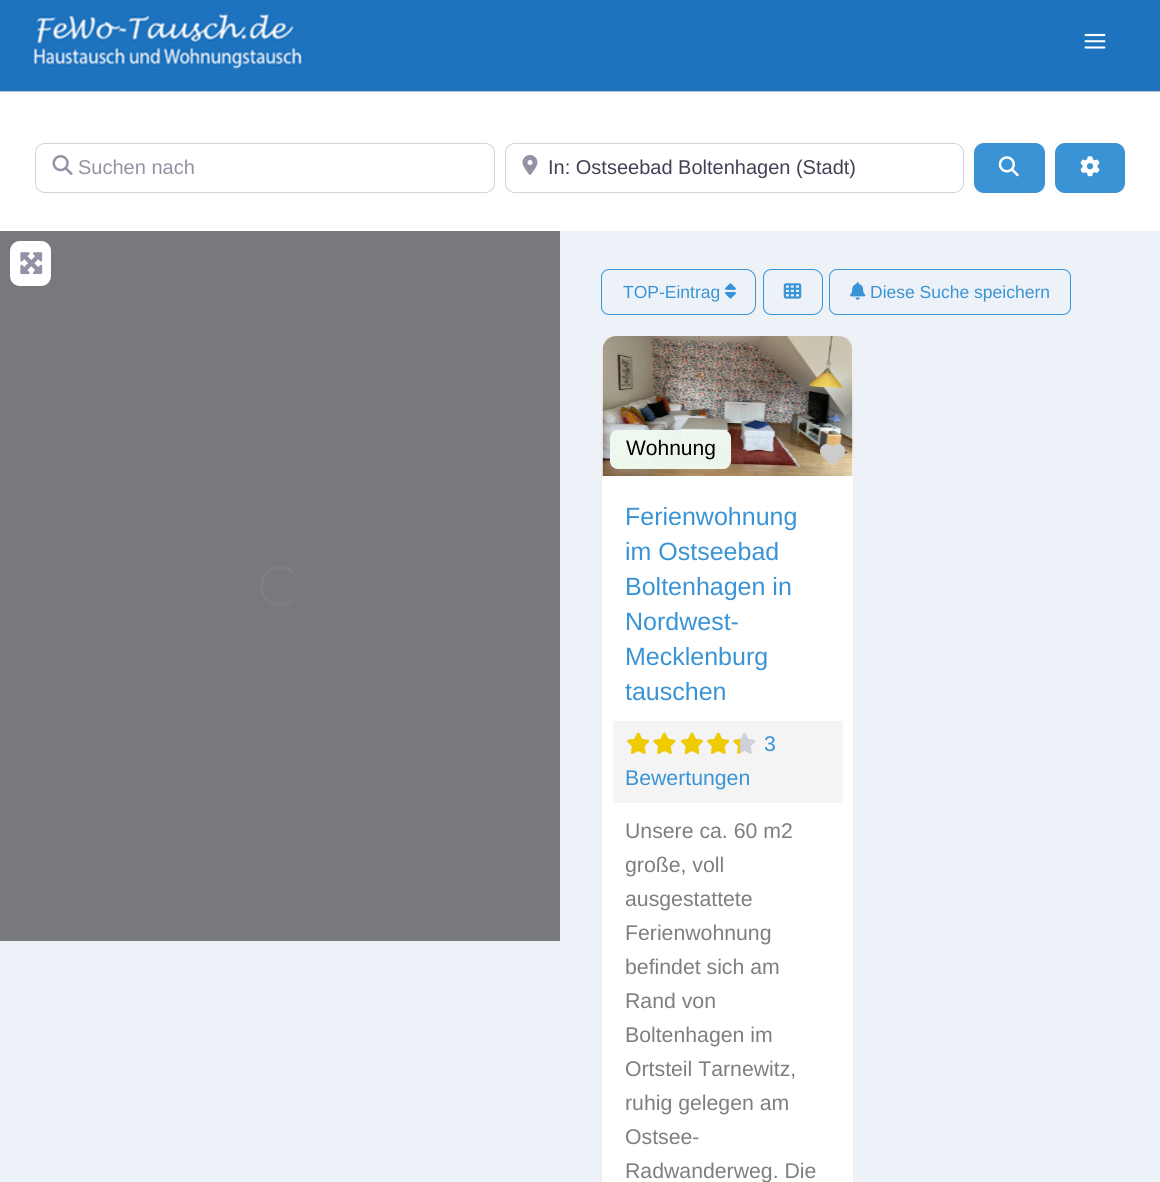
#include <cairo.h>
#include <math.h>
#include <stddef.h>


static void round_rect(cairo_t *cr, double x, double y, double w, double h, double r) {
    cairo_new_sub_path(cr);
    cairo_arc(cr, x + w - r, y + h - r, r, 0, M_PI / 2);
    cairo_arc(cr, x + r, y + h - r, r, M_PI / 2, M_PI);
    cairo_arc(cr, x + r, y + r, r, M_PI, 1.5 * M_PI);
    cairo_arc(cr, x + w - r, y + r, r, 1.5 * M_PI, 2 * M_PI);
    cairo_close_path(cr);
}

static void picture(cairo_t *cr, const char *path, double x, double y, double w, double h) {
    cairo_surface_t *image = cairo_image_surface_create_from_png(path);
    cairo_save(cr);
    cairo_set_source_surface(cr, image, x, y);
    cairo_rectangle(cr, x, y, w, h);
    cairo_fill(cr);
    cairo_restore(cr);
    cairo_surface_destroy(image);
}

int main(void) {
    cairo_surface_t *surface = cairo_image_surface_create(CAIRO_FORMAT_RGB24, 1160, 1182);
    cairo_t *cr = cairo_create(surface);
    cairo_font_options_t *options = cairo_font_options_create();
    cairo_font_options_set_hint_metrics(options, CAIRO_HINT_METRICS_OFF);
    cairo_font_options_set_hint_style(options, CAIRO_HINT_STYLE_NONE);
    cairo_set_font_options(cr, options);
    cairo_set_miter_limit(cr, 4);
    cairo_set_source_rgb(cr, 1, 1, 1);
    cairo_paint(cr);
    cairo_set_source_rgb(cr, 0.118, 0.451, 0.745);
    cairo_rectangle(cr, 0, 0, 1160, 91);
    cairo_fill(cr);
    picture(cr, "img1.png", 32, 13, 272, 56);
    picture(cr, "img2.png", 1084, 33, 22, 16);
    cairo_set_source_rgb(cr, 0.722, 0.757, 0.8);
    cairo_rectangle(cr, 0, 91, 1160, 1);
    cairo_fill(cr);
    round_rect(cr, 35.5, 143.5, 459, 49, 9.5);
    cairo_set_source_rgb(cr, 0.835, 0.824, 0.863);
    cairo_set_line_width(cr, 1);
    cairo_stroke(cr);
    picture(cr, "img3.png", 52, 155, 21, 20);
    cairo_select_font_face(cr, "Liberation Sans", CAIRO_FONT_SLANT_NORMAL, CAIRO_FONT_WEIGHT_NORMAL);
    cairo_set_font_size(cr, 20);
    cairo_set_source_rgb(cr, 0.588, 0.569, 0.643);
    cairo_move_to(cr, 78, 174);
    cairo_show_text(cr, "Suchen nach");
    round_rect(cr, 505.5, 143.5, 458, 49, 9.5);
    cairo_set_source_rgb(cr, 0.835, 0.824, 0.863);
    cairo_stroke(cr);
    picture(cr, "img4.png", 522, 155, 16, 20);
    cairo_set_source_rgb(cr, 0.271, 0.251, 0.337);
    cairo_move_to(cr, 548, 174);
    cairo_show_text(cr, "In: Ostseebad Boltenhagen (Stadt)");
    cairo_set_source_rgb(cr, 0.224, 0.576, 0.835);
    round_rect(cr, 974.5, 143.5, 70, 49, 9.5);
    cairo_fill_preserve(cr);
    cairo_stroke(cr);
    picture(cr, "img5.png", 998, 156, 21, 21);
    round_rect(cr, 1055.5, 143.5, 69, 49, 9.5);
    cairo_fill_preserve(cr);
    cairo_stroke(cr);
    picture(cr, "img6.png", 1080, 156, 20, 21);
    cairo_set_source_rgb(cr, 0.929, 0.949, 0.969);
    cairo_rectangle(cr, 0, 231, 1160, 951);
    cairo_fill(cr);
    cairo_set_source_rgb(cr, 0.467, 0.475, 0.486);
    cairo_rectangle(cr, 0, 231, 560, 710);
    cairo_fill(cr);
    cairo_set_source_rgb(cr, 1, 1, 1);
    round_rect(cr, 10, 241, 41, 45, 10);
    cairo_fill(cr);
    picture(cr, "img7.png", 20, 252, 23, 23);
    cairo_new_path(cr);
    cairo_move_to(cr, 293.5, 599.5);
    cairo_curve_to(cr, 289, 604, 282.5, 606, 276.5, 604.5);
    cairo_curve_to(cr, 254.5, 600, 257.5, 567.5, 280, 567.5);
    cairo_curve_to(cr, 285, 567.5, 290, 569.5, 293.5, 573);
    cairo_set_source_rgb(cr, 0.502, 0.502, 0.502);
    cairo_set_line_width(cr, 2.5);
    cairo_stroke(cr);
    cairo_new_path(cr);
    cairo_move_to(cr, 609, 269.5);
    cairo_line_to(cr, 746, 269.5);
    cairo_curve_to(cr, 751, 269.5, 755.5, 274, 755.5, 279);
    cairo_line_to(cr, 755.5, 305);
    cairo_curve_to(cr, 755.5, 310, 751, 314.5, 746, 314.5);
    cairo_line_to(cr, 609, 314.5);
    cairo_curve_to(cr, 605, 314.5, 601.5, 311, 601.5, 307);
    cairo_line_to(cr, 601.5, 277);
    cairo_curve_to(cr, 601.5, 273, 605, 269.5, 609, 269.5);
    cairo_close_path(cr);
    cairo_set_source_rgb(cr, 0.224, 0.576, 0.835);
    cairo_set_line_width(cr, 1);
    cairo_stroke(cr);
    cairo_set_font_size(cr, 17.5);
    cairo_move_to(cr, 623, 298);
    cairo_show_text(cr, "TOP-Eintrag");
    picture(cr, "img8.png", 725, 283, 11, 16);
    cairo_new_path(cr);
    cairo_move_to(cr, 771, 269.5);
    cairo_line_to(cr, 813, 269.5);
    cairo_curve_to(cr, 818, 269.5, 822.5, 274, 822.5, 279);
    cairo_line_to(cr, 822.5, 305);
    cairo_curve_to(cr, 822.5, 310, 818, 314.5, 813, 314.5);
    cairo_line_to(cr, 771, 314.5);
    cairo_curve_to(cr, 767, 314.5, 763.5, 311, 763.5, 307);
    cairo_line_to(cr, 763.5, 277);
    cairo_curve_to(cr, 763.5, 273, 767, 269.5, 771, 269.5);
    cairo_close_path(cr);
    cairo_stroke(cr);
    picture(cr, "img9.png", 783, 283, 19, 16);
    round_rect(cr, 829.5, 269.5, 241, 45, 7.5);
    cairo_stroke(cr);
    picture(cr, "img10.png", 850, 282, 16, 18);
    cairo_move_to(cr, 870, 298);
    cairo_show_text(cr, "Diese Suche speichern");
    cairo_set_source_rgb(cr, 1, 1, 1);
    round_rect(cr, 601.5, 335.5, 252, 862, 14.5);
    cairo_fill_preserve(cr);
    cairo_set_source_rgb(cr, 0.937, 0.925, 0.953);
    cairo_stroke(cr);
    picture(cr, "img11.png", 602, 336, 251, 140);
    cairo_set_source_rgba(cr, 0.933, 0.973, 0.937, 0.98);
    round_rect(cr, 610, 430, 121, 39, 8);
    cairo_fill(cr);
    cairo_set_font_size(cr, 21);
    cairo_set_source_rgb(cr, 0, 0, 0);
    cairo_move_to(cr, 626, 455);
    cairo_show_text(cr, "Wohnung");
    picture(cr, "img12.png", 820, 444, 25, 22);
    cairo_set_font_size(cr, 25);
    cairo_set_source_rgb(cr, 0.224, 0.576, 0.835);
    cairo_move_to(cr, 625, 525);
    cairo_show_text(cr, "Ferienwohnung");
    cairo_move_to(cr, 625, 560);
    cairo_show_text(cr, "im Ostseebad");
    cairo_move_to(cr, 625, 595);
    cairo_show_text(cr, "Boltenhagen in");
    cairo_move_to(cr, 625, 630);
    cairo_show_text(cr, "Nordwest-");
    cairo_move_to(cr, 625, 665);
    cairo_show_text(cr, "Mecklenburg");
    cairo_move_to(cr, 625, 700);
    cairo_show_text(cr, "tauschen");
    cairo_set_source_rgb(cr, 0.957, 0.957, 0.957);
    cairo_rectangle(cr, 613, 721, 230, 82);
    cairo_fill(cr);
    picture(cr, "img13.png", 627, 732, 22, 22);
    picture(cr, "img14.png", 653, 732, 23, 22);
    picture(cr, "img15.png", 681, 732, 22, 22);
    picture(cr, "img13.png", 707, 732, 22, 22);
    picture(cr, "img14.png", 733, 732, 23, 22);
    picture(cr, "img16.png", 627, 732, 23, 22);
    picture(cr, "img17.png", 653, 732, 23, 22);
    picture(cr, "img18.png", 681, 732, 22, 22);
    picture(cr, "img16.png", 707, 732, 23, 22);
    picture(cr, "img19.png", 733, 739, 7, 15);
    cairo_set_font_size(cr, 21.25);
    cairo_set_source_rgb(cr, 0.224, 0.576, 0.835);
    cairo_move_to(cr, 764, 751);
    cairo_show_text(cr, "3");
    cairo_move_to(cr, 625, 785);
    cairo_show_text(cr, "Bewertungen");
    cairo_set_source_rgb(cr, 0.494, 0.494, 0.494);
    cairo_move_to(cr, 625, 838);
    cairo_show_text(cr, "Unsere ca. 60 m2");
    cairo_move_to(cr, 625, 872);
    cairo_show_text(cr, "große, voll");
    cairo_move_to(cr, 625, 906);
    cairo_show_text(cr, "ausgestattete");
    cairo_move_to(cr, 625, 940);
    cairo_show_text(cr, "Ferienwohnung");
    cairo_move_to(cr, 625, 974);
    cairo_show_text(cr, "befindet sich am");
    cairo_move_to(cr, 625, 1008);
    cairo_show_text(cr, "Rand von");
    cairo_move_to(cr, 625, 1042);
    cairo_show_text(cr, "Boltenhagen im");
    cairo_move_to(cr, 625, 1076);
    cairo_show_text(cr, "Ortsteil Tarnewitz,");
    cairo_move_to(cr, 625, 1110);
    cairo_show_text(cr, "ruhig gelegen am");
    cairo_move_to(cr, 625, 1144);
    cairo_show_text(cr, "Ostsee-");
    cairo_move_to(cr, 625, 1178);
    cairo_show_text(cr, "Radwanderweg. Die");
    cairo_surface_write_to_png(surface, "page.png");
    cairo_font_options_destroy(options);
    cairo_destroy(cr);
    cairo_surface_destroy(surface);
    return 0;
}
